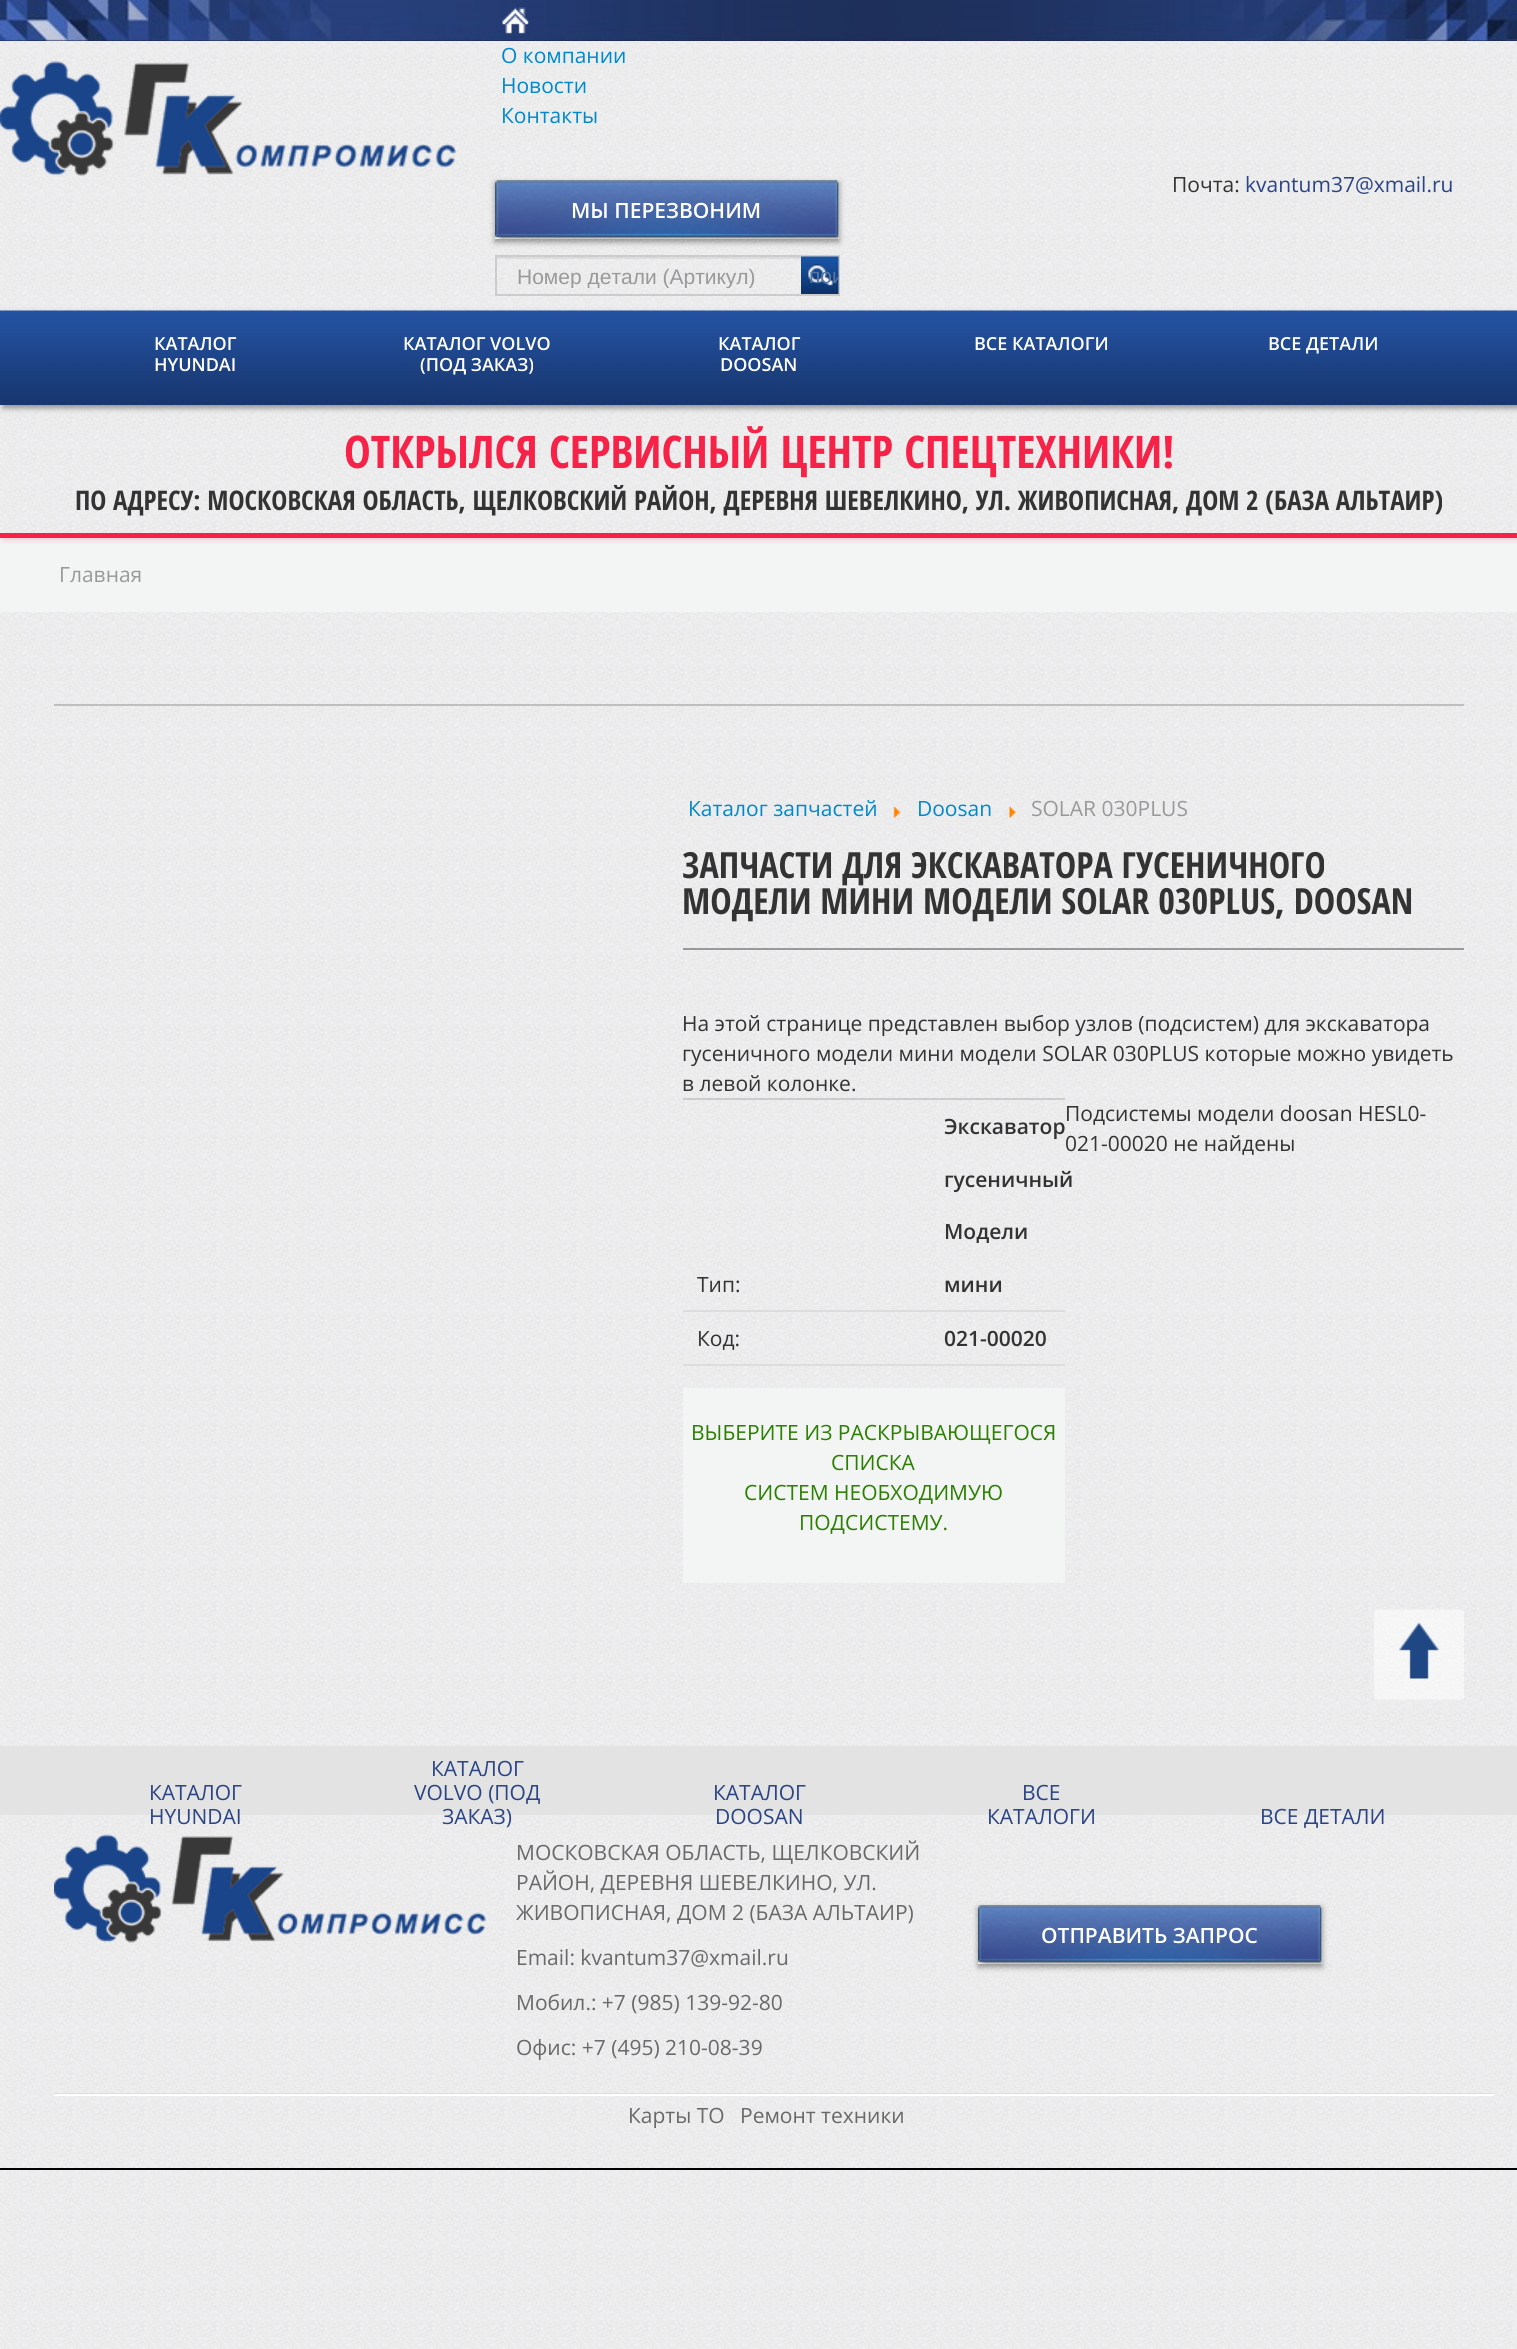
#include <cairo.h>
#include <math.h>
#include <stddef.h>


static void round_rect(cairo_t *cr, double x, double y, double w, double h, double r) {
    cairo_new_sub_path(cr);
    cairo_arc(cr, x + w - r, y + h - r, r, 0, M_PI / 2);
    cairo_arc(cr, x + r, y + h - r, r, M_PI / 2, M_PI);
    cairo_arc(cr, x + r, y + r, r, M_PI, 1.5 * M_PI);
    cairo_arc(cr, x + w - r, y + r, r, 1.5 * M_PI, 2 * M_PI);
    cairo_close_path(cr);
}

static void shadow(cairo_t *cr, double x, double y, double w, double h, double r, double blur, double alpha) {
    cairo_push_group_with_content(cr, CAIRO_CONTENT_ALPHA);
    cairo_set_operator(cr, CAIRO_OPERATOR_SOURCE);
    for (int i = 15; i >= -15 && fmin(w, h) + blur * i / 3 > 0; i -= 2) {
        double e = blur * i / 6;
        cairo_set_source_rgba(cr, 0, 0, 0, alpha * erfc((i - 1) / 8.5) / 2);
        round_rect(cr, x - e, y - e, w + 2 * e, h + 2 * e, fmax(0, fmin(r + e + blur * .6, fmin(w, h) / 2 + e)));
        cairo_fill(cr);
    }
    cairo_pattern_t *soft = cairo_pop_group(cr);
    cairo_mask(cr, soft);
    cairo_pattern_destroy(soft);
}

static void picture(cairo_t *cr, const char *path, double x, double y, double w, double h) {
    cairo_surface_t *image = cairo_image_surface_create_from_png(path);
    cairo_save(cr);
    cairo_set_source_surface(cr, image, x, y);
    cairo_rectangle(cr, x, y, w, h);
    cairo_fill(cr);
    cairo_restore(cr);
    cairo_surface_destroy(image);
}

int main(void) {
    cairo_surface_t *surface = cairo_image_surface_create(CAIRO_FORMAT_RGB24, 1517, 2349);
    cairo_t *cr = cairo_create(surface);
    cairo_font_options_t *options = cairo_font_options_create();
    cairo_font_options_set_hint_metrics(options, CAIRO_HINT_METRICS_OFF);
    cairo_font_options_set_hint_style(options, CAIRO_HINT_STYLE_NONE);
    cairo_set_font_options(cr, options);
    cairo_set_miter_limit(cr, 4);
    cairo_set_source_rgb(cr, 1, 1, 1);
    cairo_paint(cr);
    picture(cr, "img1.png", 0, 41, 1517, 2308);
    cairo_set_source_rgb(cr, 0.094, 0.153, 0.306);
    cairo_rectangle(cr, 0, 40, 1517, 1);
    cairo_fill(cr);
    picture(cr, "img2.png", 0, 0, 1517, 41);
    picture(cr, "img3.png", 502, 7, 27, 27);
    cairo_select_font_face(cr, "Open Sans", CAIRO_FONT_SLANT_NORMAL, CAIRO_FONT_WEIGHT_NORMAL);
    cairo_set_font_size(cr, 21);
    cairo_set_source_rgb(cr, 0, 0.533, 0.8);
    cairo_move_to(cr, 501, 63);
    cairo_show_text(cr, "О компании");
    cairo_move_to(cr, 501, 93);
    cairo_show_text(cr, "Новости");
    cairo_move_to(cr, 501, 123);
    cairo_show_text(cr, "Контакты");
    picture(cr, "img4.png", 0, 61, 456, 115);
    cairo_set_source_rgb(cr, 0.2, 0.2, 0.2);
    cairo_move_to(cr, 1172, 192);
    cairo_show_text(cr, "Почта:");
    cairo_set_source_rgb(cr, 0.165, 0.267, 0.518);
    cairo_move_to(cr, 1245, 192);
    cairo_show_text(cr, "kvantum37@xmail.ru");
    cairo_save(cr);
    cairo_set_fill_rule(cr, CAIRO_FILL_RULE_EVEN_ODD);
    cairo_new_path(cr);
    cairo_move_to(cr, 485, 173);
    cairo_line_to(cr, 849, 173);
    cairo_line_to(cr, 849, 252);
    cairo_line_to(cr, 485, 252);
    cairo_close_path(cr);
    cairo_move_to(cr, 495, 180);
    cairo_line_to(cr, 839, 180);
    cairo_line_to(cr, 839, 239);
    cairo_line_to(cr, 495, 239);
    cairo_close_path(cr);
    cairo_clip(cr);
    cairo_set_source_rgb(cr, 0, 0, 0);
    shadow(cr, 495, 183, 344, 59, 0, 3, 0.4);
    cairo_restore(cr);
    picture(cr, "img5.png", 495, 180, 344, 59);
    cairo_select_font_face(cr, "Open Sans SemiBold", CAIRO_FONT_SLANT_NORMAL, CAIRO_FONT_WEIGHT_NORMAL);
    cairo_set_source_rgb(cr, 1, 1, 1);
    cairo_move_to(cr, 571, 218);
    cairo_show_text(cr, "МЫ ПЕРЕЗВОНИМ");
    cairo_set_source_rgba(cr, 0, 0, 0, 0.07);
    cairo_rectangle(cr, 497, 257, 304, 2);
    cairo_fill(cr);
    cairo_rectangle(cr, 496, 256, 343, 39);
    cairo_set_source_rgb(cr, 0.8, 0.8, 0.8);
    cairo_stroke(cr);
    cairo_save(cr);
    cairo_rectangle(cr, 518, 264, 309, 24);
    cairo_clip(cr);
    cairo_select_font_face(cr, "Liberation Sans", CAIRO_FONT_SLANT_NORMAL, CAIRO_FONT_WEIGHT_NORMAL);
    cairo_set_source_rgb(cr, 0.6, 0.6, 0.6);
    cairo_move_to(cr, 517, 284);
    cairo_show_text(cr, "Номер детали (Артикул)");
    cairo_restore(cr);
    picture(cr, "img6.png", 801, 256, 38, 38);
    cairo_save(cr);
    cairo_rectangle(cr, 801, 257, 38, 37);
    cairo_clip(cr);
    cairo_select_font_face(cr, "Liberation Sans", CAIRO_FONT_SLANT_NORMAL, CAIRO_FONT_WEIGHT_NORMAL);
    cairo_set_source_rgb(cr, 0.337, 0.463, 0.651);
    cairo_move_to(cr, 809, 283);
    cairo_show_text(cr, "пои");
    cairo_restore(cr);
    cairo_set_source_rgb(cr, 0, 0, 0);
    shadow(cr, 3, 314, 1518, 94, 0, 3, 0.4);
    cairo_set_source_rgb(cr, 0.953, 0.957, 0.957);
    cairo_rectangle(cr, 0, 538, 1517, 74);
    cairo_fill(cr);
    cairo_save(cr);
    cairo_rectangle(cr, 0, 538, 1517, 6);
    cairo_clip(cr);
    cairo_set_source_rgb(cr, 0.965, 0.133, 0.282);
    shadow(cr, 3, 408, 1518, 132, 0, 3, 0.2);
    cairo_restore(cr);
    picture(cr, "img7.png", 0, 310, 1517, 95);
    cairo_set_font_size(cr, 18);
    cairo_set_source_rgb(cr, 1, 1, 1);
    cairo_move_to(cr, 154, 350);
    cairo_show_text(cr, "КАТАЛОГ");
    cairo_move_to(cr, 154, 371);
    cairo_show_text(cr, "HYUNDAI");
    cairo_move_to(cr, 403, 350);
    cairo_show_text(cr, "КАТАЛОГ VOLVO");
    cairo_move_to(cr, 420, 371);
    cairo_show_text(cr, "(ПОД ЗАКАЗ)");
    cairo_move_to(cr, 718, 350);
    cairo_show_text(cr, "КАТАЛОГ");
    cairo_move_to(cr, 720, 371);
    cairo_show_text(cr, "DOOSAN");
    cairo_move_to(cr, 974, 350);
    cairo_show_text(cr, "ВСЕ КАТАЛОГИ");
    cairo_move_to(cr, 1268, 350);
    cairo_show_text(cr, "ВСЕ ДЕТАЛИ");
    cairo_set_source_rgb(cr, 0.965, 0.133, 0.282);
    cairo_rectangle(cr, 0, 533, 1517, 5);
    cairo_fill(cr);
    cairo_select_font_face(cr, "Open Sans Condensed", CAIRO_FONT_SLANT_NORMAL, CAIRO_FONT_WEIGHT_BOLD);
    cairo_set_font_size(cr, 45);
    cairo_move_to(cr, 344, 468);
    cairo_show_text(cr, "ОТКРЫЛСЯ СЕРВИСНЫЙ ЦЕНТР СПЕЦТЕХНИКИ!");
    cairo_set_font_size(cr, 27);
    cairo_set_source_rgb(cr, 0.2, 0.2, 0.2);
    cairo_move_to(cr, 75, 510);
    cairo_show_text(cr, "ПО АДРЕСУ: МОСКОВСКАЯ ОБЛАСТЬ, ЩЕЛКОВСКИЙ РАЙОН, ДЕРЕВНЯ ШЕВЕЛКИНО, УЛ. ЖИВОПИСНАЯ, ДОМ 2 (БАЗА АЛЬТАИР)");
    cairo_select_font_face(cr, "Open Sans", CAIRO_FONT_SLANT_NORMAL, CAIRO_FONT_WEIGHT_NORMAL);
    cairo_set_font_size(cr, 21);
    cairo_set_source_rgb(cr, 0.6, 0.6, 0.6);
    cairo_move_to(cr, 59, 582);
    cairo_show_text(cr, "Главная");
    cairo_set_source_rgb(cr, 0.749, 0.749, 0.749);
    cairo_rectangle(cr, 54, 704, 1410, 2);
    cairo_fill(cr);
    cairo_set_source_rgb(cr, 0, 0.533, 0.8);
    cairo_move_to(cr, 688, 816);
    cairo_show_text(cr, "Каталог запчастей");
    picture(cr, "img8.png", 893, 806, 8, 12);
    cairo_move_to(cr, 917, 816);
    cairo_show_text(cr, "Doosan");
    picture(cr, "img9.png", 1009, 806, 7, 12);
    cairo_set_source_rgb(cr, 0.6, 0.6, 0.6);
    cairo_move_to(cr, 1031, 816);
    cairo_show_text(cr, "SOLAR 030PLUS");
    cairo_rectangle(cr, 683, 948, 781, 2);
    cairo_fill(cr);
    cairo_select_font_face(cr, "Open Sans Condensed", CAIRO_FONT_SLANT_NORMAL, CAIRO_FONT_WEIGHT_BOLD);
    cairo_set_font_size(cr, 36);
    cairo_set_source_rgb(cr, 0.2, 0.2, 0.2);
    cairo_move_to(cr, 682, 878);
    cairo_show_text(cr, "ЗАПЧАСТИ ДЛЯ ЭКСКАВАТОРА ГУСЕНИЧНОГО");
    cairo_move_to(cr, 682, 914);
    cairo_show_text(cr, "МОДЕЛИ МИНИ МОДЕЛИ SOLAR 030PLUS, DOOSAN");
    cairo_select_font_face(cr, "Open Sans", CAIRO_FONT_SLANT_NORMAL, CAIRO_FONT_WEIGHT_NORMAL);
    cairo_set_font_size(cr, 21);
    cairo_move_to(cr, 682, 1031);
    cairo_show_text(cr, "На этой странице представлен выбор узлов (подсистем) для экскаватора");
    cairo_move_to(cr, 682, 1061);
    cairo_show_text(cr, "гусеничного модели мини модели SOLAR 030PLUS которые можно увидеть");
    cairo_move_to(cr, 682, 1091);
    cairo_show_text(cr, "в левой колонке.");
    cairo_set_source_rgb(cr, 0.8, 0.8, 0.8);
    cairo_rectangle(cr, 683, 1098, 382, 2);
    cairo_fill(cr);
    cairo_set_source_rgb(cr, 0.867, 0.867, 0.867);
    cairo_rectangle(cr, 683, 1310, 382, 2);
    cairo_fill(cr);
    cairo_set_source_rgb(cr, 0.2, 0.2, 0.2);
    cairo_move_to(cr, 697, 1292);
    cairo_show_text(cr, "Тип:");
    cairo_select_font_face(cr, "Open Sans SemiBold", CAIRO_FONT_SLANT_NORMAL, CAIRO_FONT_WEIGHT_NORMAL);
    cairo_move_to(cr, 944, 1134);
    cairo_show_text(cr, "Экскаватор");
    cairo_move_to(cr, 944, 1187);
    cairo_show_text(cr, "гусеничный");
    cairo_move_to(cr, 944, 1239);
    cairo_show_text(cr, "Модели");
    cairo_move_to(cr, 944, 1292);
    cairo_show_text(cr, "мини");
    cairo_set_source_rgb(cr, 0.867, 0.867, 0.867);
    cairo_rectangle(cr, 683, 1364, 382, 2);
    cairo_fill(cr);
    cairo_select_font_face(cr, "Open Sans", CAIRO_FONT_SLANT_NORMAL, CAIRO_FONT_WEIGHT_NORMAL);
    cairo_set_source_rgb(cr, 0.2, 0.2, 0.2);
    cairo_move_to(cr, 697, 1346);
    cairo_show_text(cr, "Код:");
    cairo_select_font_face(cr, "Open Sans SemiBold", CAIRO_FONT_SLANT_NORMAL, CAIRO_FONT_WEIGHT_NORMAL);
    cairo_move_to(cr, 944, 1346);
    cairo_show_text(cr, "021-00020");
    cairo_set_source_rgb(cr, 0.953, 0.957, 0.957);
    cairo_rectangle(cr, 683, 1388, 382, 195);
    cairo_fill(cr);
    cairo_select_font_face(cr, "Open Sans", CAIRO_FONT_SLANT_NORMAL, CAIRO_FONT_WEIGHT_NORMAL);
    cairo_set_source_rgb(cr, 0.169, 0.502, 0);
    cairo_move_to(cr, 691, 1440);
    cairo_show_text(cr, "ВЫБЕРИТЕ ИЗ РАСКРЫВАЮЩЕГОСЯ");
    cairo_move_to(cr, 831, 1470);
    cairo_show_text(cr, "СПИСКА");
    cairo_move_to(cr, 744, 1500);
    cairo_show_text(cr, "СИСТЕМ НЕОБХОДИМУЮ");
    cairo_move_to(cr, 799, 1530);
    cairo_show_text(cr, "ПОДСИСТЕМУ.");
    cairo_set_source_rgb(cr, 0.2, 0.2, 0.2);
    cairo_move_to(cr, 1065, 1121);
    cairo_show_text(cr, "Подсистемы модели doosan HESL0-");
    cairo_move_to(cr, 1065, 1151);
    cairo_show_text(cr, "021-00020 не найдены");
    picture(cr, "img10.png", 1374, 1609, 90, 91);
    cairo_set_source_rgb(cr, 0.89, 0.89, 0.89);
    cairo_rectangle(cr, 0, 1746, 1517, 69);
    cairo_fill(cr);
    cairo_set_source_rgb(cr, 0.165, 0.267, 0.518);
    cairo_move_to(cr, 149, 1800);
    cairo_show_text(cr, "КАТАЛОГ");
    cairo_move_to(cr, 149, 1824);
    cairo_show_text(cr, "HYUNDAI");
    cairo_move_to(cr, 431, 1776);
    cairo_show_text(cr, "КАТАЛОГ");
    cairo_move_to(cr, 414, 1800);
    cairo_show_text(cr, "VOLVO (ПОД");
    cairo_move_to(cr, 442, 1824);
    cairo_show_text(cr, "ЗАКАЗ)");
    cairo_move_to(cr, 713, 1800);
    cairo_show_text(cr, "КАТАЛОГ");
    cairo_move_to(cr, 715, 1824);
    cairo_show_text(cr, "DOOSAN");
    cairo_move_to(cr, 1022, 1800);
    cairo_show_text(cr, "ВСЕ");
    cairo_move_to(cr, 987, 1824);
    cairo_show_text(cr, "КАТАЛОГИ");
    cairo_move_to(cr, 1260, 1824);
    cairo_show_text(cr, "ВСЕ ДЕТАЛИ");
    picture(cr, "img11.png", 54, 1834, 432, 109);
    cairo_set_source_rgb(cr, 0.416, 0.412, 0.412);
    cairo_move_to(cr, 516, 1860);
    cairo_show_text(cr, "МОСКОВСКАЯ ОБЛАСТЬ, ЩЕЛКОВСКИЙ");
    cairo_move_to(cr, 516, 1890);
    cairo_show_text(cr, "РАЙОН, ДЕРЕВНЯ ШЕВЕЛКИНО, УЛ.");
    cairo_move_to(cr, 516, 1920);
    cairo_show_text(cr, "ЖИВОПИСНАЯ, ДОМ 2 (БАЗА АЛЬТАИР)");
    cairo_move_to(cr, 516, 1965);
    cairo_show_text(cr, "Email: kvantum37@xmail.ru");
    cairo_move_to(cr, 516, 2010);
    cairo_show_text(cr, "Мобил.: +7 (985) 139-92-80");
    cairo_move_to(cr, 516, 2055);
    cairo_show_text(cr, "Офис: +7 (495) 210-08-39");
    cairo_save(cr);
    cairo_set_fill_rule(cr, CAIRO_FILL_RULE_EVEN_ODD);
    cairo_new_path(cr);
    cairo_move_to(cr, 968, 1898);
    cairo_line_to(cr, 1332, 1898);
    cairo_line_to(cr, 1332, 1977);
    cairo_line_to(cr, 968, 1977);
    cairo_close_path(cr);
    cairo_move_to(cr, 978, 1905);
    cairo_line_to(cr, 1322, 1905);
    cairo_line_to(cr, 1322, 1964);
    cairo_line_to(cr, 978, 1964);
    cairo_close_path(cr);
    cairo_clip(cr);
    cairo_set_source_rgb(cr, 0, 0, 0);
    shadow(cr, 978, 1908, 344, 59, 0, 3, 0.4);
    cairo_restore(cr);
    picture(cr, "img12.png", 978, 1905, 344, 59);
    cairo_select_font_face(cr, "Open Sans SemiBold", CAIRO_FONT_SLANT_NORMAL, CAIRO_FONT_WEIGHT_NORMAL);
    cairo_set_source_rgb(cr, 1, 1, 1);
    cairo_move_to(cr, 1041, 1943);
    cairo_show_text(cr, "ОТПРАВИТЬ ЗАПРОС");
    cairo_set_source_rgb(cr, 0.863, 0.863, 0.863);
    cairo_rectangle(cr, 54, 2093, 1440, 1);
    cairo_fill(cr);
    cairo_set_source_rgb(cr, 1, 1, 1);
    cairo_rectangle(cr, 54, 2094, 1440, 2);
    cairo_fill(cr);
    cairo_select_font_face(cr, "Open Sans", CAIRO_FONT_SLANT_NORMAL, CAIRO_FONT_WEIGHT_NORMAL);
    cairo_set_source_rgb(cr, 0.416, 0.412, 0.412);
    cairo_move_to(cr, 628, 2123);
    cairo_show_text(cr, "Карты ТО");
    cairo_move_to(cr, 740, 2123);
    cairo_show_text(cr, "Ремонт техники");
    cairo_set_source_rgb(cr, 0, 0, 0);
    cairo_rectangle(cr, 0, 2168, 1517, 2);
    cairo_fill(cr);
    cairo_surface_write_to_png(surface, "page.png");
    cairo_font_options_destroy(options);
    cairo_destroy(cr);
    cairo_surface_destroy(surface);
    return 0;
}
